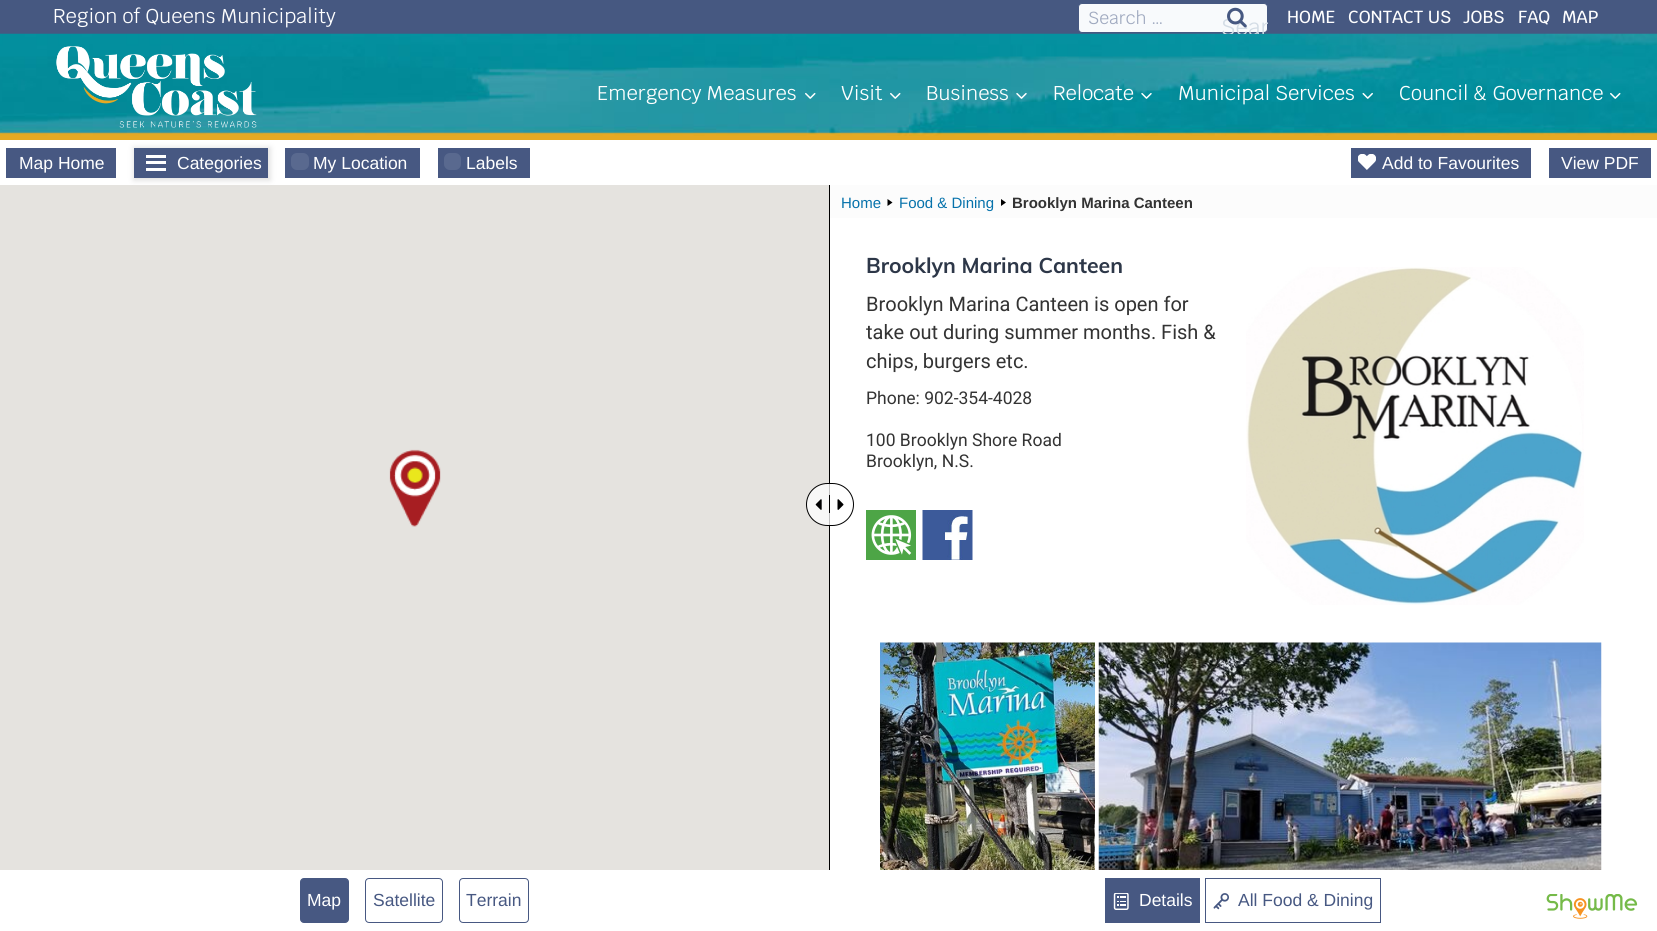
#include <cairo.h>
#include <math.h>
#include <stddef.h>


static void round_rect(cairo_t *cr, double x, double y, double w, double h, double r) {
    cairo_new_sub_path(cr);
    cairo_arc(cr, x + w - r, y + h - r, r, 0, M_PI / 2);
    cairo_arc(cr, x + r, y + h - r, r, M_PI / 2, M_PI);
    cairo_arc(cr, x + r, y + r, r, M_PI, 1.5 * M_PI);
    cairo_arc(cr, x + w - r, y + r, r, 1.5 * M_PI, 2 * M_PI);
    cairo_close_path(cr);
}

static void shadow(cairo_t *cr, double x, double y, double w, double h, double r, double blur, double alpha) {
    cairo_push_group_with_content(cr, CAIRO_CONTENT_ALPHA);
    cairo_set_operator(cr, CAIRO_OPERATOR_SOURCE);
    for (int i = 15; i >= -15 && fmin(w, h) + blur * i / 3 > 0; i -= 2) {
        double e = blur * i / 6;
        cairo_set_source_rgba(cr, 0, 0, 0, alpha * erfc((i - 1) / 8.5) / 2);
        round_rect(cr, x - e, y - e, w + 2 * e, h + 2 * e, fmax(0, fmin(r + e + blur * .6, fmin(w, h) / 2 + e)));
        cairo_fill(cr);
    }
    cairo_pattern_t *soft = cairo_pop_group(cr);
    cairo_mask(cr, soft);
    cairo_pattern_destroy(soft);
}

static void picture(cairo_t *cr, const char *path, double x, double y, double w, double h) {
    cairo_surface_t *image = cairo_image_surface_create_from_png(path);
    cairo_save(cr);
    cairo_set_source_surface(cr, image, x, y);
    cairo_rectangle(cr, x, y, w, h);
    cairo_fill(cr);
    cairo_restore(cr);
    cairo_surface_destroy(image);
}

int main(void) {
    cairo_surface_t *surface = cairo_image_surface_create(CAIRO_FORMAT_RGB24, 1657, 931);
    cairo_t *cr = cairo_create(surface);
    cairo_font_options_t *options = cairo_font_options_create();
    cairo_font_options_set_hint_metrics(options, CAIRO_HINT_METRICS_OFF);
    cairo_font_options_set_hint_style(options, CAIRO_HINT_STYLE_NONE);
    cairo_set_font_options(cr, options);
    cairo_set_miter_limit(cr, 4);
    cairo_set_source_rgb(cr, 1, 1, 1);
    cairo_paint(cr);
    cairo_set_source_rgb(cr, 0.275, 0.345, 0.506);
    cairo_rectangle(cr, 0, 0, 1657, 34);
    cairo_fill(cr);
    cairo_select_font_face(cr, "Krub", CAIRO_FONT_SLANT_NORMAL, CAIRO_FONT_WEIGHT_NORMAL);
    cairo_set_font_size(cr, 20);
    cairo_set_source_rgb(cr, 1, 1, 1);
    cairo_move_to(cr, 53, 23);
    cairo_show_text(cr, "Region of Queens Municipality");
    cairo_set_source_rgb(cr, 0.969, 0.98, 0.988);
    round_rect(cr, 1078.5, 3.5, 189, 29, 3.5);
    cairo_fill_preserve(cr);
    cairo_set_source_rgb(cr, 0.275, 0.345, 0.506);
    cairo_set_line_width(cr, 1);
    cairo_stroke(cr);
    cairo_set_font_size(cr, 17.5);
    cairo_set_source_rgb(cr, 0.624, 0.663, 0.749);
    cairo_move_to(cr, 1088, 24);
    cairo_show_text(cr, "Search …");
    cairo_set_source_rgb(cr, 0.898, 0.89, 0.875);
    cairo_rectangle(cr, 0, 185, 829, 685);
    cairo_fill(cr);
    cairo_set_source_rgb(cr, 0.867, 0.867, 0.867);
    shadow(cr, 134, 148, 136, 32, 0, 3, 1);
    picture(cr, "img2.png", 0, 33, 1657, 107);
    cairo_save(cr);
    cairo_rectangle(cr, 1205, 0, 63, 34);
    cairo_clip(cr);
    cairo_set_font_size(cr, 22.5);
    cairo_set_source_rgb(cr, 0.827, 0.863, 0.898);
    cairo_move_to(cr, 1221, 35);
    cairo_show_text(cr, "Sear");
    cairo_restore(cr);
    picture(cr, "img1.png", 1227, 7, 20, 21);
    cairo_select_font_face(cr, "Krub Medium", CAIRO_FONT_SLANT_NORMAL, CAIRO_FONT_WEIGHT_NORMAL);
    cairo_set_source_rgb(cr, 1, 1, 1);
    cairo_move_to(cr, 1287, 23);
    cairo_show_text(cr, "HOME");
    cairo_move_to(cr, 1348, 23);
    cairo_show_text(cr, "CONTACT US");
    cairo_move_to(cr, 1463, 23);
    cairo_show_text(cr, "JOBS");
    cairo_move_to(cr, 1518, 23);
    cairo_show_text(cr, "FAQ");
    cairo_move_to(cr, 1562, 23);
    cairo_show_text(cr, "MAP");
    picture(cr, "img3.png", 56, 46, 201, 82);
    cairo_select_font_face(cr, "Krub", CAIRO_FONT_SLANT_NORMAL, CAIRO_FONT_WEIGHT_NORMAL);
    cairo_set_font_size(cr, 20);
    cairo_move_to(cr, 597, 100);
    cairo_show_text(cr, "Emergency Measures");
    picture(cr, "img4.png", 805, 92, 11, 7);
    cairo_move_to(cr, 841, 100);
    cairo_show_text(cr, "Visit");
    picture(cr, "img5.png", 890, 92, 11, 7);
    cairo_move_to(cr, 926, 100);
    cairo_show_text(cr, "Business");
    picture(cr, "img6.png", 1016, 93, 11, 6);
    cairo_move_to(cr, 1053, 100);
    cairo_show_text(cr, "Relocate");
    picture(cr, "img7.png", 1141, 93, 11, 6);
    cairo_move_to(cr, 1178, 100);
    cairo_show_text(cr, "Municipal Services");
    picture(cr, "img8.png", 1362, 92, 11, 7);
    cairo_move_to(cr, 1399, 100);
    cairo_show_text(cr, "Council & Governance");
    picture(cr, "img9.png", 1610, 92, 11, 7);
    cairo_set_source_rgb(cr, 0.278, 0.345, 0.51);
    cairo_rectangle(cr, 6, 148, 110, 30);
    cairo_fill(cr);
    cairo_select_font_face(cr, "Liberation Sans", CAIRO_FONT_SLANT_NORMAL, CAIRO_FONT_WEIGHT_NORMAL);
    cairo_set_font_size(cr, 17.5);
    cairo_set_source_rgb(cr, 1, 1, 1);
    cairo_move_to(cr, 19, 169);
    cairo_show_text(cr, "Map Home");
    cairo_set_source_rgb(cr, 0.278, 0.345, 0.51);
    cairo_rectangle(cr, 134, 148, 134, 30);
    cairo_fill(cr);
    cairo_set_source_rgb(cr, 1, 1, 1);
    cairo_rectangle(cr, 146, 161, 20, 3);
    cairo_fill(cr);
    cairo_rectangle(cr, 146, 155, 20, 3);
    cairo_fill(cr);
    cairo_rectangle(cr, 146, 168, 20, 3);
    cairo_fill(cr);
    cairo_move_to(cr, 177, 169);
    cairo_show_text(cr, "Categories");
    cairo_set_source_rgb(cr, 0.278, 0.345, 0.51);
    cairo_rectangle(cr, 285, 148, 135, 30);
    cairo_fill(cr);
    cairo_set_source_rgb(cr, 0.349, 0.412, 0.561);
    round_rect(cr, 291, 153, 18, 17, 6);
    cairo_fill(cr);
    cairo_set_source_rgb(cr, 1, 1, 1);
    cairo_move_to(cr, 313, 169);
    cairo_show_text(cr, "My Location");
    cairo_set_source_rgb(cr, 0.278, 0.345, 0.51);
    cairo_rectangle(cr, 438, 148, 92, 30);
    cairo_fill(cr);
    cairo_set_source_rgb(cr, 0.349, 0.412, 0.561);
    round_rect(cr, 444, 153, 17, 17, 6);
    cairo_fill(cr);
    cairo_set_source_rgb(cr, 1, 1, 1);
    cairo_move_to(cr, 466, 169);
    cairo_show_text(cr, "Labels");
    cairo_set_source_rgb(cr, 0.278, 0.345, 0.51);
    cairo_rectangle(cr, 1351, 148, 180, 30);
    cairo_fill(cr);
    picture(cr, "img10.png", 1358, 154, 18, 16);
    cairo_set_source_rgb(cr, 1, 1, 1);
    cairo_move_to(cr, 1382, 169);
    cairo_show_text(cr, "Add to Favourites");
    cairo_set_source_rgb(cr, 0.278, 0.345, 0.51);
    cairo_rectangle(cr, 1549, 148, 102, 30);
    cairo_fill(cr);
    cairo_set_source_rgb(cr, 1, 1, 1);
    cairo_move_to(cr, 1561, 169);
    cairo_show_text(cr, "View PDF");
    picture(cr, "img11.png", 389, 449, 52, 78);
    cairo_set_source_rgb(cr, 0, 0, 0);
    cairo_rectangle(cr, 829, 185, 1, 685);
    cairo_fill(cr);
    cairo_set_source_rgba(cr, 1, 1, 1, 0.75);
    round_rect(cr, 806.5, 483.5, 47, 42, 21);
    cairo_fill_preserve(cr);
    cairo_set_source_rgb(cr, 0, 0, 0);
    cairo_stroke(cr);
    picture(cr, "img12.png", 815, 499, 7, 11);
    cairo_rectangle(cr, 829, 495, 1, 18);
    cairo_fill(cr);
    picture(cr, "img13.png", 837, 499, 7, 11);
    cairo_set_source_rgb(cr, 0.988, 0.988, 0.988);
    cairo_rectangle(cr, 830, 185, 827, 33);
    cairo_fill(cr);
    cairo_set_font_size(cr, 15);
    cairo_set_source_rgb(cr, 0.027, 0.447, 0.671);
    cairo_move_to(cr, 841, 208);
    cairo_show_text(cr, "Home");
    cairo_set_source_rgb(cr, 0, 0, 0);
    cairo_new_path(cr);
    cairo_move_to(cr, 887.5, 206);
    cairo_line_to(cr, 887.5, 199);
    cairo_line_to(cr, 892.5, 202.5);
    cairo_close_path(cr);
    cairo_fill(cr);
    cairo_set_source_rgb(cr, 0.027, 0.447, 0.671);
    cairo_move_to(cr, 899, 208);
    cairo_show_text(cr, "Food & Dining");
    cairo_set_source_rgb(cr, 0, 0, 0);
    cairo_new_path(cr);
    cairo_move_to(cr, 1001, 206);
    cairo_line_to(cr, 1001, 199);
    cairo_line_to(cr, 1006, 202.5);
    cairo_close_path(cr);
    cairo_fill(cr);
    cairo_select_font_face(cr, "Liberation Sans", CAIRO_FONT_SLANT_NORMAL, CAIRO_FONT_WEIGHT_BOLD);
    cairo_set_source_rgb(cr, 0.2, 0.2, 0.2);
    cairo_move_to(cr, 1012, 208);
    cairo_show_text(cr, "Brooklyn Marina Canteen");
    cairo_select_font_face(cr, "Muli", CAIRO_FONT_SLANT_NORMAL, CAIRO_FONT_WEIGHT_BOLD);
    cairo_set_font_size(cr, 21.25);
    cairo_set_source_rgb(cr, 0.176, 0.216, 0.282);
    cairo_move_to(cr, 866, 273);
    cairo_show_text(cr, "Brooklyn Marina Canteen");
    picture(cr, "img14.png", 1246, 267, 338, 338);
    cairo_select_font_face(cr, "Roboto", CAIRO_FONT_SLANT_NORMAL, CAIRO_FONT_WEIGHT_NORMAL);
    cairo_set_font_size(cr, 20);
    cairo_set_source_rgb(cr, 0.2, 0.2, 0.2);
    cairo_move_to(cr, 866, 311);
    cairo_show_text(cr, "Brooklyn Marina Canteen is open for");
    cairo_move_to(cr, 866, 339);
    cairo_show_text(cr, "take out during summer months. Fish &");
    cairo_move_to(cr, 866, 368);
    cairo_show_text(cr, "chips, burgers etc.");
    cairo_set_font_size(cr, 17.5);
    cairo_move_to(cr, 866, 404);
    cairo_show_text(cr, "Phone: 902-354-4028");
    cairo_move_to(cr, 866, 446);
    cairo_show_text(cr, "100 Brooklyn Shore Road");
    cairo_move_to(cr, 866, 467);
    cairo_show_text(cr, "Brooklyn, N.S.");
    picture(cr, "img15.png", 866, 510, 50, 50);
    picture(cr, "img16.png", 922, 510, 51, 50);
    picture(cr, "img17.png", 880, 642, 215, 228);
    picture(cr, "img18.png", 1098, 642, 504, 228);
    cairo_set_source_rgb(cr, 0.278, 0.345, 0.51);
    round_rect(cr, 300.5, 878.5, 48, 44, 3.5);
    cairo_fill_preserve(cr);
    cairo_stroke(cr);
    cairo_select_font_face(cr, "Liberation Sans", CAIRO_FONT_SLANT_NORMAL, CAIRO_FONT_WEIGHT_NORMAL);
    cairo_set_source_rgb(cr, 1, 1, 1);
    cairo_move_to(cr, 307, 906);
    cairo_show_text(cr, "Map");
    round_rect(cr, 365.5, 878.5, 77, 44, 3.5);
    cairo_set_source_rgb(cr, 0.278, 0.345, 0.51);
    cairo_stroke(cr);
    cairo_move_to(cr, 373, 906);
    cairo_show_text(cr, "Satellite");
    round_rect(cr, 459.5, 878.5, 69, 44, 3.5);
    cairo_stroke(cr);
    cairo_move_to(cr, 466, 906);
    cairo_show_text(cr, "Terrain");
    cairo_rectangle(cr, 1105, 878, 95, 45);
    cairo_fill(cr);
    picture(cr, "img19.png", 1113, 893, 16, 17);
    cairo_set_source_rgb(cr, 1, 1, 1);
    cairo_move_to(cr, 1139, 906);
    cairo_show_text(cr, "Details");
    cairo_rectangle(cr, 1205.5, 878.5, 175, 44);
    cairo_set_source_rgb(cr, 0.278, 0.345, 0.51);
    cairo_stroke(cr);
    picture(cr, "img20.png", 1213, 893, 16, 17);
    cairo_move_to(cr, 1238, 906);
    cairo_show_text(cr, "All Food & Dining");
    picture(cr, "img21.png", 1546, 894, 92, 25);
    cairo_surface_write_to_png(surface, "page.png");
    cairo_font_options_destroy(options);
    cairo_destroy(cr);
    cairo_surface_destroy(surface);
    return 0;
}
